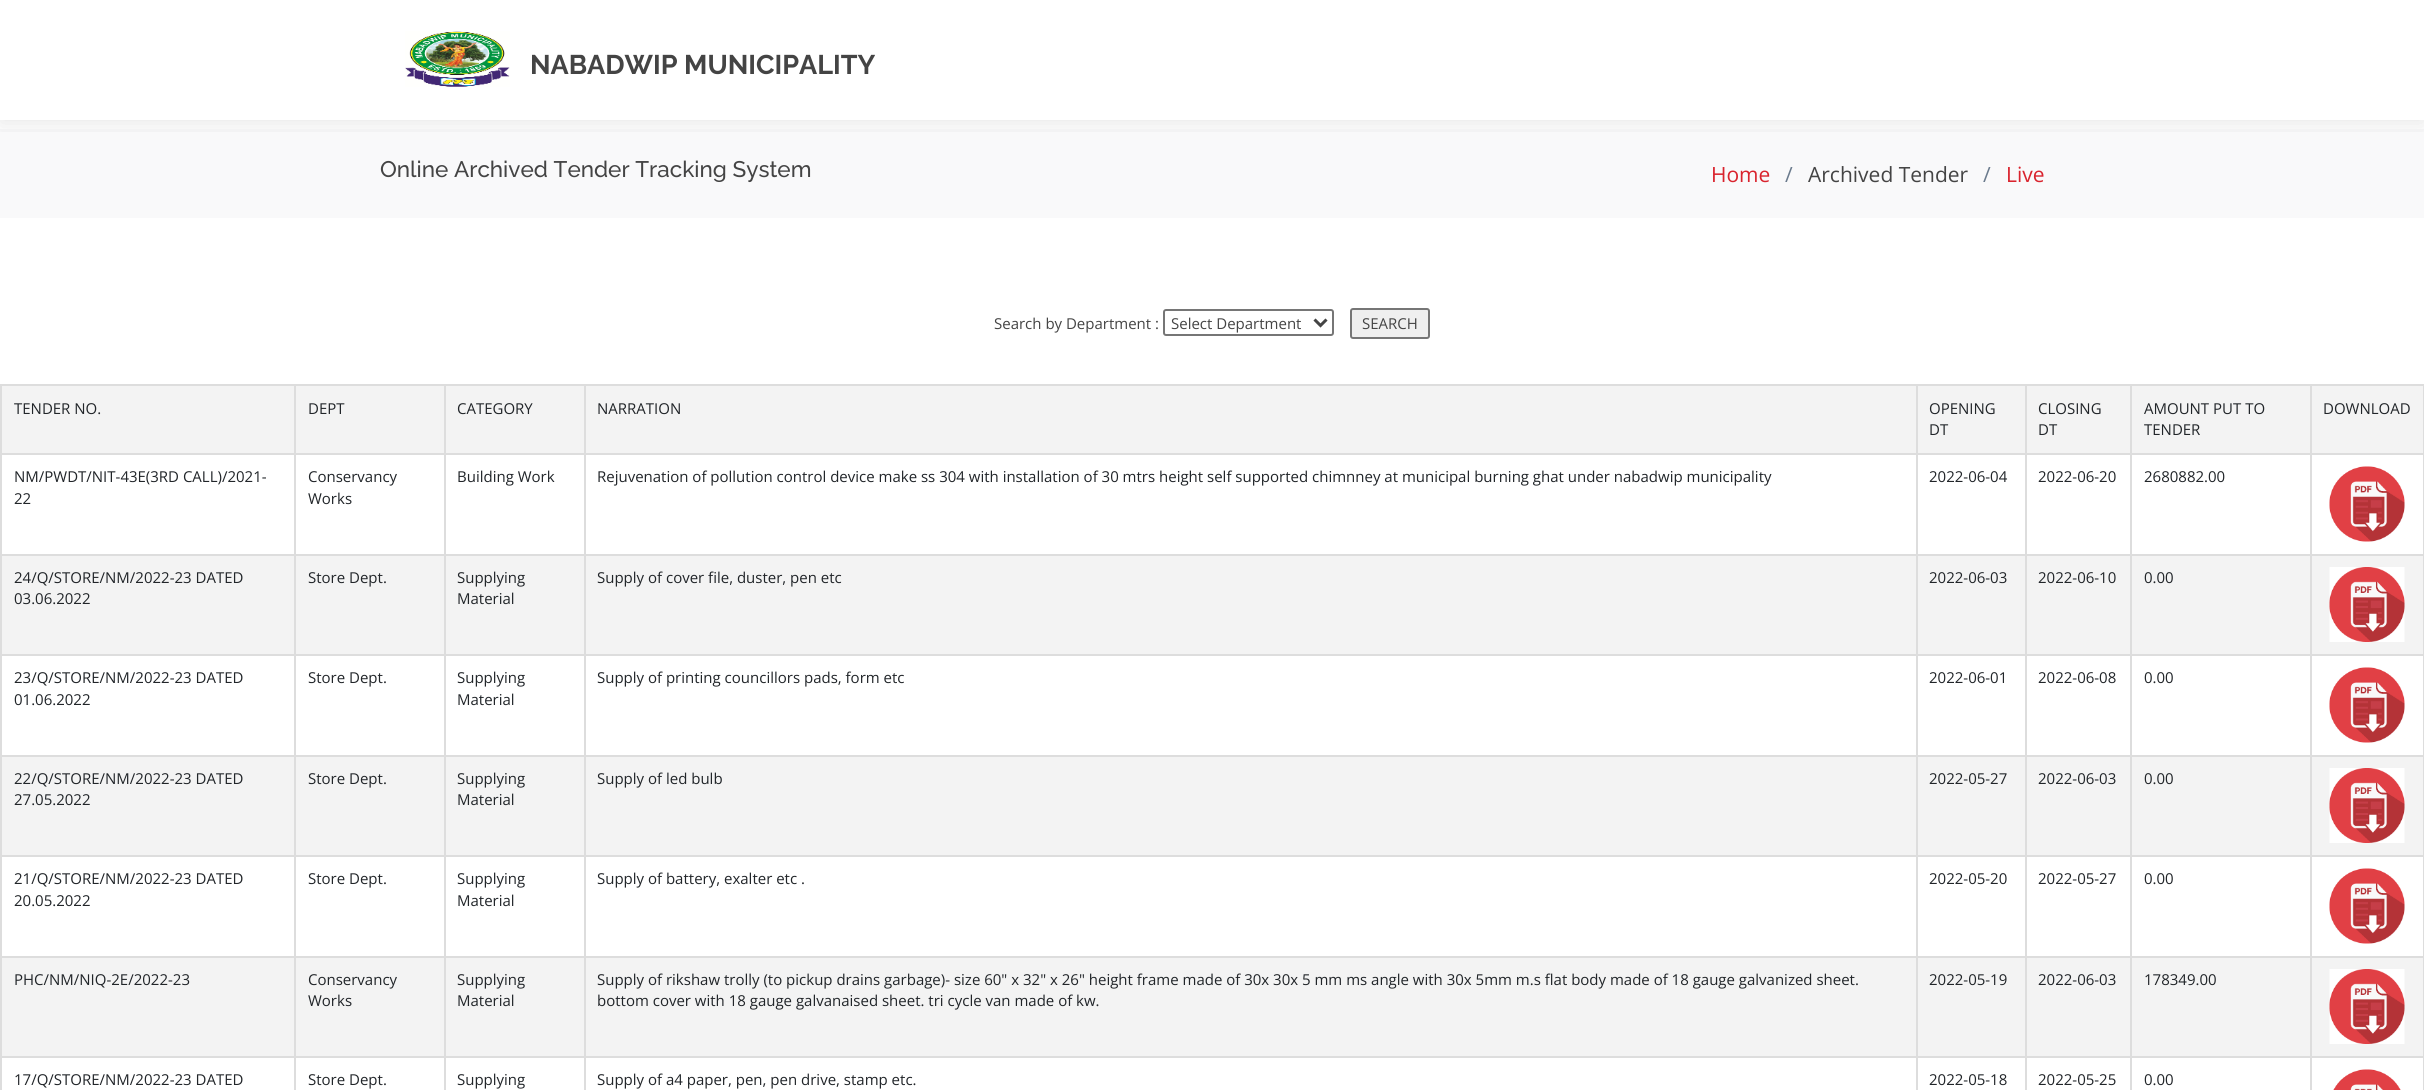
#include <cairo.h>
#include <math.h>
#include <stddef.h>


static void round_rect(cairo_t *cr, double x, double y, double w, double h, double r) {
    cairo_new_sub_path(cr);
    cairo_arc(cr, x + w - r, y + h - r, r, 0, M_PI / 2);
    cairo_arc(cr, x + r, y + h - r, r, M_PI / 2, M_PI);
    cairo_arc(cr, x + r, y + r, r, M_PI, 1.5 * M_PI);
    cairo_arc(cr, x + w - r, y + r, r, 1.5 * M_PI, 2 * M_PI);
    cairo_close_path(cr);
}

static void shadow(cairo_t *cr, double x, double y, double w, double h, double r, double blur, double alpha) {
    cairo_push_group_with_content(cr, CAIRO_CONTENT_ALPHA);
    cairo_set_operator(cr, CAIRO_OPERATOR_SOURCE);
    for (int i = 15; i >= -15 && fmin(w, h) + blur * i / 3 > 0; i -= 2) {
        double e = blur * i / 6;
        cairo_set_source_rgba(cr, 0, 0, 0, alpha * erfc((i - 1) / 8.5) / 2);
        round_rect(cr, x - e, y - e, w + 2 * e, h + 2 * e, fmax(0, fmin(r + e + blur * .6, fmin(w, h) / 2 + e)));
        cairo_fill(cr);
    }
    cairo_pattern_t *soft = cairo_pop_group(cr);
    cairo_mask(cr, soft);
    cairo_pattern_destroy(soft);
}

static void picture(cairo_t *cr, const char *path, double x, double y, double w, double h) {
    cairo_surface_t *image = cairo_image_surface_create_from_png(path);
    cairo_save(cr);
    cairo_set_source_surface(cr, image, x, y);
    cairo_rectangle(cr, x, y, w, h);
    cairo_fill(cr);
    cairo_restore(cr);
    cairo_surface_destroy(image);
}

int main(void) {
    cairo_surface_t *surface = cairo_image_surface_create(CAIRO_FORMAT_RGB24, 2424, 1090);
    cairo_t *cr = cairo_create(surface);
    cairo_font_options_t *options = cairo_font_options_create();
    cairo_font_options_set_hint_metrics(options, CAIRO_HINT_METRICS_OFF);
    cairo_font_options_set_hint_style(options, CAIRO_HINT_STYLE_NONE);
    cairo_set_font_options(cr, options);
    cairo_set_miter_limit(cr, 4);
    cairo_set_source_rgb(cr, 1, 1, 1);
    cairo_paint(cr);
    cairo_set_source_rgb(cr, 0.973, 0.976, 0.98);
    cairo_rectangle(cr, 0, 129, 2424, 89);
    cairo_fill(cr);
    cairo_save(cr);
    cairo_rectangle(cr, 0, 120, 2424, 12);
    cairo_clip(cr);
    cairo_set_source_rgb(cr, 0, 0, 0);
    shadow(cr, 0, 3, 2424, 120, 0, 11, 0.1);
    cairo_restore(cr);
    picture(cr, "img1.png", 405, 31, 105, 56);
    cairo_select_font_face(cr, "Raleway", CAIRO_FONT_SLANT_NORMAL, CAIRO_FONT_WEIGHT_BOLD);
    cairo_set_font_size(cr, 27);
    cairo_set_source_rgb(cr, 0.267, 0.267, 0.267);
    cairo_move_to(cr, 530, 74);
    cairo_show_text(cr, "NABADWIP MUNICIPALITY");
    cairo_select_font_face(cr, "Raleway Medium", CAIRO_FONT_SLANT_NORMAL, CAIRO_FONT_WEIGHT_NORMAL);
    cairo_set_font_size(cr, 22.5);
    cairo_move_to(cr, 380, 177);
    cairo_show_text(cr, "Online Archived Tender Tracking System");
    cairo_select_font_face(cr, "Open Sans", CAIRO_FONT_SLANT_NORMAL, CAIRO_FONT_WEIGHT_NORMAL);
    cairo_set_font_size(cr, 21);
    cairo_set_source_rgb(cr, 0.851, 0.137, 0.176);
    cairo_move_to(cr, 1711, 182);
    cairo_show_text(cr, "Home");
    cairo_set_source_rgb(cr, 0.42, 0.482, 0.553);
    cairo_move_to(cr, 1785, 182);
    cairo_show_text(cr, "/");
    cairo_set_source_rgb(cr, 0.267, 0.267, 0.267);
    cairo_move_to(cr, 1808, 182);
    cairo_show_text(cr, "Archived Tender");
    cairo_set_source_rgb(cr, 0.42, 0.482, 0.553);
    cairo_move_to(cr, 1983, 182);
    cairo_show_text(cr, "/");
    cairo_set_source_rgb(cr, 0.851, 0.137, 0.176);
    cairo_move_to(cr, 2006, 182);
    cairo_show_text(cr, "Live");
    cairo_set_font_size(cr, 15);
    cairo_set_source_rgb(cr, 0.267, 0.267, 0.267);
    cairo_move_to(cr, 994, 329);
    cairo_show_text(cr, "Search by Department :");
    round_rect(cr, 1164, 310, 169, 25, 2);
    cairo_set_source_rgb(cr, 0.463, 0.463, 0.463);
    cairo_stroke(cr);
    cairo_new_path(cr);
    cairo_move_to(cr, 1314.5, 319.5);
    cairo_line_to(cr, 1320.5, 325.5);
    cairo_line_to(cr, 1326.5, 319.5);
    cairo_set_source_rgb(cr, 0.267, 0.267, 0.267);
    cairo_set_line_width(cr, 3);
    cairo_stroke(cr);
    cairo_move_to(cr, 1171, 329);
    cairo_show_text(cr, "Select Department");
    cairo_set_source_rgb(cr, 0.937, 0.937, 0.937);
    round_rect(cr, 1351, 309, 78, 29, 2);
    cairo_fill_preserve(cr);
    cairo_set_source_rgb(cr, 0.463, 0.463, 0.463);
    cairo_set_line_width(cr, 2);
    cairo_stroke(cr);
    cairo_set_source_rgb(cr, 0.267, 0.267, 0.267);
    cairo_move_to(cr, 1362, 329);
    cairo_show_text(cr, "SEARCH");
    cairo_set_source_rgb(cr, 0.953, 0.953, 0.953);
    cairo_rectangle(cr, 2, 386, 2421, 67);
    cairo_fill(cr);
    cairo_set_source_rgb(cr, 0.867, 0.867, 0.867);
    cairo_rectangle(cr, 2310, 384, 114, 2);
    cairo_fill(cr);
    cairo_rectangle(cr, 2310, 453, 114, 2);
    cairo_fill(cr);
    cairo_rectangle(cr, 2310, 554, 114, 2);
    cairo_fill(cr);
    cairo_set_source_rgb(cr, 0.953, 0.953, 0.953);
    cairo_rectangle(cr, 2, 556, 2421, 98);
    cairo_fill(cr);
    cairo_set_source_rgb(cr, 0.867, 0.867, 0.867);
    cairo_rectangle(cr, 2310, 654, 114, 2);
    cairo_fill(cr);
    cairo_rectangle(cr, 2310, 755, 114, 2);
    cairo_fill(cr);
    cairo_set_source_rgb(cr, 0.953, 0.953, 0.953);
    cairo_rectangle(cr, 2, 757, 2421, 98);
    cairo_fill(cr);
    cairo_set_source_rgb(cr, 0.867, 0.867, 0.867);
    cairo_rectangle(cr, 2310, 855, 114, 2);
    cairo_fill(cr);
    cairo_rectangle(cr, 2310, 956, 114, 2);
    cairo_fill(cr);
    cairo_set_source_rgb(cr, 0.953, 0.953, 0.953);
    cairo_rectangle(cr, 2, 958, 2421, 98);
    cairo_fill(cr);
    cairo_set_source_rgb(cr, 0.867, 0.867, 0.867);
    cairo_rectangle(cr, 2310, 1056, 114, 2);
    cairo_fill(cr);
    cairo_rectangle(cr, 2310, 1056, 2, 34);
    cairo_fill(cr);
    cairo_rectangle(cr, 2130, 1056, 182, 2);
    cairo_fill(cr);
    cairo_rectangle(cr, 2310, 956, 2, 102);
    cairo_fill(cr);
    cairo_rectangle(cr, 2130, 956, 182, 2);
    cairo_fill(cr);
    cairo_rectangle(cr, 2310, 855, 2, 102);
    cairo_fill(cr);
    cairo_rectangle(cr, 2130, 855, 182, 2);
    cairo_fill(cr);
    cairo_rectangle(cr, 2310, 755, 2, 102);
    cairo_fill(cr);
    cairo_rectangle(cr, 2130, 755, 182, 2);
    cairo_fill(cr);
    cairo_rectangle(cr, 2310, 654, 2, 102);
    cairo_fill(cr);
    cairo_rectangle(cr, 2130, 654, 182, 2);
    cairo_fill(cr);
    cairo_rectangle(cr, 2310, 554, 2, 102);
    cairo_fill(cr);
    cairo_rectangle(cr, 2130, 554, 182, 2);
    cairo_fill(cr);
    cairo_rectangle(cr, 2310, 453, 2, 102);
    cairo_fill(cr);
    cairo_rectangle(cr, 2130, 453, 182, 2);
    cairo_fill(cr);
    cairo_rectangle(cr, 2310, 384, 2, 71);
    cairo_fill(cr);
    cairo_rectangle(cr, 2130, 384, 182, 2);
    cairo_fill(cr);
    cairo_rectangle(cr, 2130, 1056, 2, 34);
    cairo_fill(cr);
    cairo_rectangle(cr, 2025, 1056, 107, 2);
    cairo_fill(cr);
    cairo_rectangle(cr, 2130, 956, 2, 102);
    cairo_fill(cr);
    cairo_rectangle(cr, 2025, 956, 107, 2);
    cairo_fill(cr);
    cairo_rectangle(cr, 2130, 855, 2, 102);
    cairo_fill(cr);
    cairo_rectangle(cr, 2025, 855, 107, 2);
    cairo_fill(cr);
    cairo_rectangle(cr, 2130, 755, 2, 102);
    cairo_fill(cr);
    cairo_rectangle(cr, 2025, 755, 107, 2);
    cairo_fill(cr);
    cairo_rectangle(cr, 2130, 654, 2, 102);
    cairo_fill(cr);
    cairo_rectangle(cr, 2025, 654, 107, 2);
    cairo_fill(cr);
    cairo_rectangle(cr, 2130, 554, 2, 102);
    cairo_fill(cr);
    cairo_rectangle(cr, 2025, 554, 107, 2);
    cairo_fill(cr);
    cairo_rectangle(cr, 2130, 453, 2, 102);
    cairo_fill(cr);
    cairo_rectangle(cr, 2025, 453, 107, 2);
    cairo_fill(cr);
    cairo_rectangle(cr, 2130, 384, 2, 71);
    cairo_fill(cr);
    cairo_rectangle(cr, 2025, 384, 107, 2);
    cairo_fill(cr);
    cairo_rectangle(cr, 2025, 1056, 2, 34);
    cairo_fill(cr);
    cairo_rectangle(cr, 1916, 1056, 111, 2);
    cairo_fill(cr);
    cairo_rectangle(cr, 2025, 956, 2, 102);
    cairo_fill(cr);
    cairo_rectangle(cr, 1916, 956, 111, 2);
    cairo_fill(cr);
    cairo_rectangle(cr, 2025, 855, 2, 102);
    cairo_fill(cr);
    cairo_rectangle(cr, 1916, 855, 111, 2);
    cairo_fill(cr);
    cairo_rectangle(cr, 2025, 755, 2, 102);
    cairo_fill(cr);
    cairo_rectangle(cr, 1916, 755, 111, 2);
    cairo_fill(cr);
    cairo_rectangle(cr, 2025, 654, 2, 102);
    cairo_fill(cr);
    cairo_rectangle(cr, 1916, 654, 111, 2);
    cairo_fill(cr);
    cairo_rectangle(cr, 2025, 554, 2, 102);
    cairo_fill(cr);
    cairo_rectangle(cr, 1916, 554, 111, 2);
    cairo_fill(cr);
    cairo_rectangle(cr, 2025, 453, 2, 102);
    cairo_fill(cr);
    cairo_rectangle(cr, 1916, 453, 111, 2);
    cairo_fill(cr);
    cairo_rectangle(cr, 2025, 384, 2, 71);
    cairo_fill(cr);
    cairo_rectangle(cr, 1916, 384, 111, 2);
    cairo_fill(cr);
    cairo_rectangle(cr, 1916, 1056, 2, 34);
    cairo_fill(cr);
    cairo_rectangle(cr, 584, 1056, 1333, 2);
    cairo_fill(cr);
    cairo_rectangle(cr, 1916, 956, 2, 102);
    cairo_fill(cr);
    cairo_rectangle(cr, 584, 956, 1333, 2);
    cairo_fill(cr);
    cairo_rectangle(cr, 1916, 855, 2, 102);
    cairo_fill(cr);
    cairo_rectangle(cr, 584, 855, 1333, 2);
    cairo_fill(cr);
    cairo_rectangle(cr, 1916, 755, 2, 102);
    cairo_fill(cr);
    cairo_rectangle(cr, 584, 755, 1333, 2);
    cairo_fill(cr);
    cairo_rectangle(cr, 1916, 654, 2, 102);
    cairo_fill(cr);
    cairo_rectangle(cr, 584, 654, 1333, 2);
    cairo_fill(cr);
    cairo_rectangle(cr, 1916, 554, 2, 102);
    cairo_fill(cr);
    cairo_rectangle(cr, 584, 554, 1333, 2);
    cairo_fill(cr);
    cairo_rectangle(cr, 1916, 453, 2, 102);
    cairo_fill(cr);
    cairo_rectangle(cr, 584, 453, 1333, 2);
    cairo_fill(cr);
    cairo_rectangle(cr, 1916, 384, 2, 71);
    cairo_fill(cr);
    cairo_rectangle(cr, 584, 384, 1333, 2);
    cairo_fill(cr);
    cairo_rectangle(cr, 584, 1056, 2, 34);
    cairo_fill(cr);
    cairo_rectangle(cr, 444, 1056, 141, 2);
    cairo_fill(cr);
    cairo_rectangle(cr, 584, 956, 2, 102);
    cairo_fill(cr);
    cairo_rectangle(cr, 444, 956, 141, 2);
    cairo_fill(cr);
    cairo_rectangle(cr, 584, 855, 2, 102);
    cairo_fill(cr);
    cairo_rectangle(cr, 444, 855, 141, 2);
    cairo_fill(cr);
    cairo_rectangle(cr, 584, 755, 2, 102);
    cairo_fill(cr);
    cairo_rectangle(cr, 444, 755, 141, 2);
    cairo_fill(cr);
    cairo_rectangle(cr, 584, 654, 2, 102);
    cairo_fill(cr);
    cairo_rectangle(cr, 444, 654, 141, 2);
    cairo_fill(cr);
    cairo_rectangle(cr, 584, 554, 2, 102);
    cairo_fill(cr);
    cairo_rectangle(cr, 444, 554, 141, 2);
    cairo_fill(cr);
    cairo_rectangle(cr, 584, 453, 2, 102);
    cairo_fill(cr);
    cairo_rectangle(cr, 444, 453, 141, 2);
    cairo_fill(cr);
    cairo_rectangle(cr, 584, 384, 2, 71);
    cairo_fill(cr);
    cairo_rectangle(cr, 444, 384, 141, 2);
    cairo_fill(cr);
    cairo_rectangle(cr, 444, 1056, 2, 34);
    cairo_fill(cr);
    cairo_rectangle(cr, 294, 1056, 152, 2);
    cairo_fill(cr);
    cairo_rectangle(cr, 444, 956, 2, 102);
    cairo_fill(cr);
    cairo_rectangle(cr, 294, 956, 152, 2);
    cairo_fill(cr);
    cairo_rectangle(cr, 444, 855, 2, 102);
    cairo_fill(cr);
    cairo_rectangle(cr, 294, 855, 152, 2);
    cairo_fill(cr);
    cairo_rectangle(cr, 444, 755, 2, 102);
    cairo_fill(cr);
    cairo_rectangle(cr, 294, 755, 152, 2);
    cairo_fill(cr);
    cairo_rectangle(cr, 444, 654, 2, 102);
    cairo_fill(cr);
    cairo_rectangle(cr, 294, 654, 152, 2);
    cairo_fill(cr);
    cairo_rectangle(cr, 444, 554, 2, 102);
    cairo_fill(cr);
    cairo_rectangle(cr, 294, 554, 152, 2);
    cairo_fill(cr);
    cairo_rectangle(cr, 444, 453, 2, 102);
    cairo_fill(cr);
    cairo_rectangle(cr, 294, 453, 152, 2);
    cairo_fill(cr);
    cairo_rectangle(cr, 444, 384, 2, 71);
    cairo_fill(cr);
    cairo_rectangle(cr, 294, 384, 152, 2);
    cairo_fill(cr);
    cairo_rectangle(cr, 294, 1056, 2, 34);
    cairo_fill(cr);
    cairo_rectangle(cr, 0, 1056, 296, 2);
    cairo_fill(cr);
    cairo_rectangle(cr, 294, 956, 2, 102);
    cairo_fill(cr);
    cairo_rectangle(cr, 0, 956, 296, 2);
    cairo_fill(cr);
    cairo_rectangle(cr, 294, 855, 2, 102);
    cairo_fill(cr);
    cairo_rectangle(cr, 0, 855, 296, 2);
    cairo_fill(cr);
    cairo_rectangle(cr, 294, 755, 2, 102);
    cairo_fill(cr);
    cairo_rectangle(cr, 0, 755, 296, 2);
    cairo_fill(cr);
    cairo_rectangle(cr, 294, 654, 2, 102);
    cairo_fill(cr);
    cairo_rectangle(cr, 0, 654, 296, 2);
    cairo_fill(cr);
    cairo_rectangle(cr, 294, 554, 2, 102);
    cairo_fill(cr);
    cairo_rectangle(cr, 0, 554, 296, 2);
    cairo_fill(cr);
    cairo_rectangle(cr, 294, 453, 2, 102);
    cairo_fill(cr);
    cairo_rectangle(cr, 0, 453, 296, 2);
    cairo_fill(cr);
    cairo_rectangle(cr, 294, 384, 2, 71);
    cairo_fill(cr);
    cairo_rectangle(cr, 0, 384, 296, 2);
    cairo_fill(cr);
    cairo_rectangle(cr, 0, 1056, 2, 34);
    cairo_fill(cr);
    cairo_rectangle(cr, 0, 956, 2, 102);
    cairo_fill(cr);
    cairo_rectangle(cr, 0, 855, 2, 102);
    cairo_fill(cr);
    cairo_rectangle(cr, 0, 755, 2, 102);
    cairo_fill(cr);
    cairo_rectangle(cr, 0, 654, 2, 102);
    cairo_fill(cr);
    cairo_rectangle(cr, 0, 554, 2, 102);
    cairo_fill(cr);
    cairo_rectangle(cr, 0, 453, 2, 102);
    cairo_fill(cr);
    cairo_rectangle(cr, 0, 384, 2, 71);
    cairo_fill(cr);
    cairo_set_source_rgb(cr, 0.129, 0.145, 0.161);
    cairo_move_to(cr, 14, 414);
    cairo_show_text(cr, "TENDER NO.");
    cairo_move_to(cr, 308, 414);
    cairo_show_text(cr, "DEPT");
    cairo_move_to(cr, 457, 414);
    cairo_show_text(cr, "CATEGORY");
    cairo_move_to(cr, 597, 414);
    cairo_show_text(cr, "NARRATION");
    cairo_move_to(cr, 1929, 414);
    cairo_show_text(cr, "OPENING");
    cairo_move_to(cr, 1929, 435);
    cairo_show_text(cr, "DT");
    cairo_move_to(cr, 2038, 414);
    cairo_show_text(cr, "CLOSING");
    cairo_move_to(cr, 2038, 435);
    cairo_show_text(cr, "DT");
    cairo_move_to(cr, 2144, 414);
    cairo_show_text(cr, "AMOUNT PUT TO");
    cairo_move_to(cr, 2144, 435);
    cairo_show_text(cr, "TENDER");
    cairo_set_source_rgb(cr, 0.867, 0.867, 0.867);
    cairo_rectangle(cr, 2423, 1056, 1, 34);
    cairo_fill(cr);
    cairo_rectangle(cr, 2423, 956, 1, 102);
    cairo_fill(cr);
    cairo_rectangle(cr, 2423, 855, 1, 102);
    cairo_fill(cr);
    cairo_rectangle(cr, 2423, 755, 1, 102);
    cairo_fill(cr);
    cairo_rectangle(cr, 2423, 654, 1, 102);
    cairo_fill(cr);
    cairo_rectangle(cr, 2423, 554, 1, 102);
    cairo_fill(cr);
    cairo_rectangle(cr, 2423, 453, 1, 102);
    cairo_fill(cr);
    cairo_rectangle(cr, 2423, 384, 1, 71);
    cairo_fill(cr);
    cairo_set_source_rgb(cr, 0.129, 0.145, 0.161);
    cairo_move_to(cr, 2323, 414);
    cairo_show_text(cr, "DOWNLOAD");
    cairo_move_to(cr, 14, 482);
    cairo_show_text(cr, "NM/PWDT/NIT-43E(3RD CALL)/2021-");
    cairo_move_to(cr, 14, 504);
    cairo_show_text(cr, "22");
    cairo_move_to(cr, 308, 482);
    cairo_show_text(cr, "Conservancy");
    cairo_move_to(cr, 308, 504);
    cairo_show_text(cr, "Works");
    cairo_move_to(cr, 457, 482);
    cairo_show_text(cr, "Building Work");
    cairo_move_to(cr, 597, 482);
    cairo_show_text(cr, "Rejuvenation of pollution control device make ss 304 with installation of 30 mtrs height self supported chimnney at municipal burning ghat under nabadwip municipality");
    cairo_move_to(cr, 1929, 482);
    cairo_show_text(cr, "2022-06-04");
    cairo_move_to(cr, 2038, 482);
    cairo_show_text(cr, "2022-06-20");
    cairo_move_to(cr, 2144, 482);
    cairo_show_text(cr, "2680882.00");
    picture(cr, "img2.png", 2329, 466, 76, 76);
    cairo_move_to(cr, 14, 583);
    cairo_show_text(cr, "24/Q/STORE/NM/2022-23 DATED");
    cairo_move_to(cr, 14, 604);
    cairo_show_text(cr, "03.06.2022");
    cairo_move_to(cr, 308, 583);
    cairo_show_text(cr, "Store Dept.");
    cairo_move_to(cr, 457, 583);
    cairo_show_text(cr, "Supplying");
    cairo_move_to(cr, 457, 604);
    cairo_show_text(cr, "Material");
    cairo_move_to(cr, 597, 583);
    cairo_show_text(cr, "Supply of cover file, duster, pen etc");
    cairo_move_to(cr, 1929, 583);
    cairo_show_text(cr, "2022-06-03");
    cairo_move_to(cr, 2038, 583);
    cairo_show_text(cr, "2022-06-10");
    cairo_move_to(cr, 2144, 583);
    cairo_show_text(cr, "0.00");
    picture(cr, "img3.png", 2329, 567, 76, 75);
    cairo_move_to(cr, 14, 683);
    cairo_show_text(cr, "23/Q/STORE/NM/2022-23 DATED");
    cairo_move_to(cr, 14, 705);
    cairo_show_text(cr, "01.06.2022");
    cairo_move_to(cr, 308, 683);
    cairo_show_text(cr, "Store Dept.");
    cairo_move_to(cr, 457, 683);
    cairo_show_text(cr, "Supplying");
    cairo_move_to(cr, 457, 705);
    cairo_show_text(cr, "Material");
    cairo_move_to(cr, 597, 683);
    cairo_show_text(cr, "Supply of printing councillors pads, form etc");
    cairo_move_to(cr, 1929, 683);
    cairo_show_text(cr, "2022-06-01");
    cairo_move_to(cr, 2038, 683);
    cairo_show_text(cr, "2022-06-08");
    cairo_move_to(cr, 2144, 683);
    cairo_show_text(cr, "0.00");
    picture(cr, "img2.png", 2329, 667, 76, 76);
    cairo_move_to(cr, 14, 784);
    cairo_show_text(cr, "22/Q/STORE/NM/2022-23 DATED");
    cairo_move_to(cr, 14, 805);
    cairo_show_text(cr, "27.05.2022");
    cairo_move_to(cr, 308, 784);
    cairo_show_text(cr, "Store Dept.");
    cairo_move_to(cr, 457, 784);
    cairo_show_text(cr, "Supplying");
    cairo_move_to(cr, 457, 805);
    cairo_show_text(cr, "Material");
    cairo_move_to(cr, 597, 784);
    cairo_show_text(cr, "Supply of led bulb");
    cairo_move_to(cr, 1929, 784);
    cairo_show_text(cr, "2022-05-27");
    cairo_move_to(cr, 2038, 784);
    cairo_show_text(cr, "2022-06-03");
    cairo_move_to(cr, 2144, 784);
    cairo_show_text(cr, "0.00");
    picture(cr, "img3.png", 2329, 768, 76, 75);
    cairo_move_to(cr, 14, 884);
    cairo_show_text(cr, "21/Q/STORE/NM/2022-23 DATED");
    cairo_move_to(cr, 14, 906);
    cairo_show_text(cr, "20.05.2022");
    cairo_move_to(cr, 308, 884);
    cairo_show_text(cr, "Store Dept.");
    cairo_move_to(cr, 457, 884);
    cairo_show_text(cr, "Supplying");
    cairo_move_to(cr, 457, 906);
    cairo_show_text(cr, "Material");
    cairo_move_to(cr, 597, 884);
    cairo_show_text(cr, "Supply of battery, exalter etc .");
    cairo_move_to(cr, 1929, 884);
    cairo_show_text(cr, "2022-05-20");
    cairo_move_to(cr, 2038, 884);
    cairo_show_text(cr, "2022-05-27");
    cairo_move_to(cr, 2144, 884);
    cairo_show_text(cr, "0.00");
    picture(cr, "img2.png", 2329, 868, 76, 76);
    cairo_move_to(cr, 14, 985);
    cairo_show_text(cr, "PHC/NM/NIQ-2E/2022-23");
    cairo_move_to(cr, 308, 985);
    cairo_show_text(cr, "Conservancy");
    cairo_move_to(cr, 308, 1006);
    cairo_show_text(cr, "Works");
    cairo_move_to(cr, 457, 985);
    cairo_show_text(cr, "Supplying");
    cairo_move_to(cr, 457, 1006);
    cairo_show_text(cr, "Material");
    cairo_move_to(cr, 597, 985);
    cairo_show_text(cr, "Supply of rikshaw trolly (to pickup drains garbage)- size 60\" x 32\" x 26\" height frame made of 30x 30x 5 mm ms angle with 30x 5mm m.s flat body made of 18 gauge galvanized sheet.");
    cairo_move_to(cr, 597, 1006);
    cairo_show_text(cr, "bottom cover with 18 gauge galvanaised sheet. tri cycle van made of kw.");
    cairo_move_to(cr, 1929, 985);
    cairo_show_text(cr, "2022-05-19");
    cairo_move_to(cr, 2038, 985);
    cairo_show_text(cr, "2022-06-03");
    cairo_move_to(cr, 2144, 985);
    cairo_show_text(cr, "178349.00");
    picture(cr, "img3.png", 2329, 969, 76, 75);
    cairo_move_to(cr, 14, 1085);
    cairo_show_text(cr, "17/Q/STORE/NM/2022-23 DATED");
    cairo_move_to(cr, 308, 1085);
    cairo_show_text(cr, "Store Dept.");
    cairo_move_to(cr, 457, 1085);
    cairo_show_text(cr, "Supplying");
    cairo_move_to(cr, 597, 1085);
    cairo_show_text(cr, "Supply of a4 paper, pen, pen drive, stamp etc.");
    cairo_move_to(cr, 1929, 1085);
    cairo_show_text(cr, "2022-05-18");
    cairo_move_to(cr, 2038, 1085);
    cairo_show_text(cr, "2022-05-25");
    cairo_move_to(cr, 2144, 1085);
    cairo_show_text(cr, "0.00");
    picture(cr, "img4.png", 2333, 1069, 68, 21);
    cairo_surface_write_to_png(surface, "page.png");
    cairo_font_options_destroy(options);
    cairo_destroy(cr);
    cairo_surface_destroy(surface);
    return 0;
}
